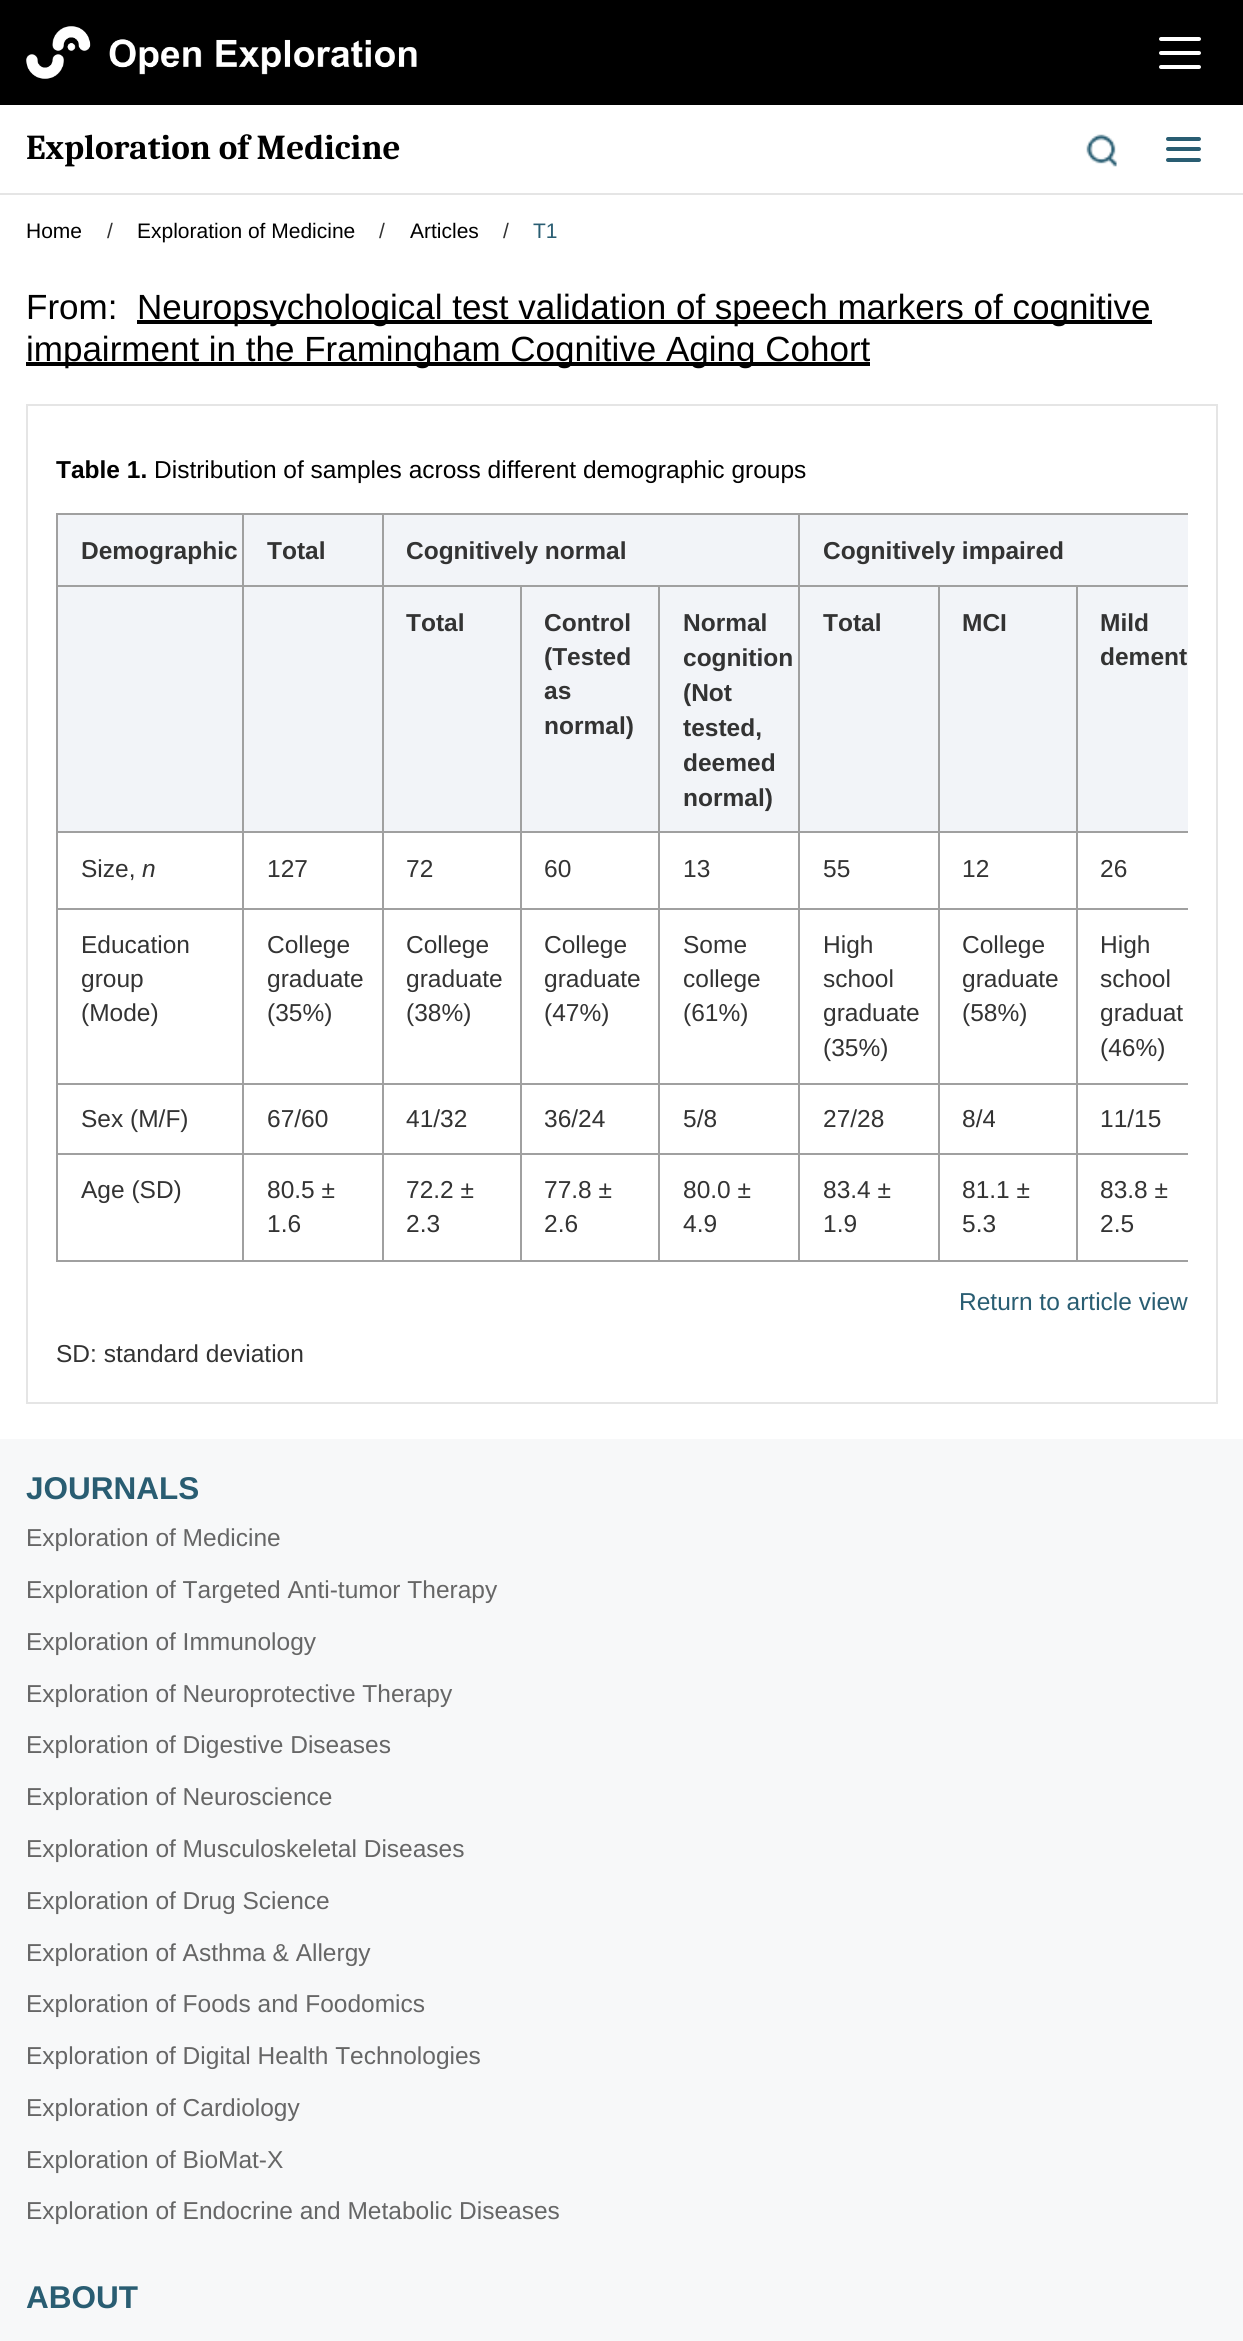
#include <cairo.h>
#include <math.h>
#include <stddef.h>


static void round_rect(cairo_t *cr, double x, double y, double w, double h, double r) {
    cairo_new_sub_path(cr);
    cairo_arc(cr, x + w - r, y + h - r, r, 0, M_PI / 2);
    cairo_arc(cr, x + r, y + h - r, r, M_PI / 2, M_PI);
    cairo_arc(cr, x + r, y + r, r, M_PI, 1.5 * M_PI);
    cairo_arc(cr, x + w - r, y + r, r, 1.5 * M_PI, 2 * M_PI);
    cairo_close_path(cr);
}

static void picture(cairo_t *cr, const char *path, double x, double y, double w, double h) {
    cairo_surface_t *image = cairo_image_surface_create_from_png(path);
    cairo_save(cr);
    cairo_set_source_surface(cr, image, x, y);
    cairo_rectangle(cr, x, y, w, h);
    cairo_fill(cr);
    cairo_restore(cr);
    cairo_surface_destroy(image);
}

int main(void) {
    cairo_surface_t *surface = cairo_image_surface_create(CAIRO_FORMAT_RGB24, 1243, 2341);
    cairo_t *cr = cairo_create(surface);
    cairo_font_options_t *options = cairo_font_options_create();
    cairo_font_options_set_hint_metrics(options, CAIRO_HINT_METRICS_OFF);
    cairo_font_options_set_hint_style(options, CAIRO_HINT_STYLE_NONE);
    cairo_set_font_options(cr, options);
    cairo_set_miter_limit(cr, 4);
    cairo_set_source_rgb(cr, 1, 1, 1);
    cairo_paint(cr);
    cairo_set_source_rgb(cr, 0, 0, 0);
    cairo_rectangle(cr, 0, 0, 1243, 105);
    cairo_fill(cr);
    picture(cr, "img1.png", 26, 26, 391, 53);
    cairo_set_source_rgb(cr, 1, 1, 1);
    round_rect(cr, 1159, 37, 42, 4, 2);
    cairo_fill(cr);
    round_rect(cr, 1159, 51, 42, 4, 2);
    cairo_fill(cr);
    round_rect(cr, 1159, 65, 42, 4, 2);
    cairo_fill(cr);
    cairo_set_source_rgb(cr, 0.898, 0.898, 0.898);
    cairo_rectangle(cr, 0, 193, 1243, 2);
    cairo_fill(cr);
    cairo_select_font_face(cr, "Caladea", CAIRO_FONT_SLANT_NORMAL, CAIRO_FONT_WEIGHT_BOLD);
    cairo_set_font_size(cr, 35);
    cairo_set_source_rgb(cr, 0, 0, 0);
    cairo_move_to(cr, 26, 159);
    cairo_show_text(cr, "Exploration of Medicine");
    picture(cr, "img2.png", 1086, 134, 31, 33);
    cairo_set_source_rgb(cr, 0.161, 0.365, 0.447);
    round_rect(cr, 1166, 137, 35, 4, 2);
    cairo_fill(cr);
    round_rect(cr, 1166, 147, 35, 4, 2);
    cairo_fill(cr);
    round_rect(cr, 1166, 158, 35, 4, 2);
    cairo_fill(cr);
    cairo_select_font_face(cr, "Liberation Sans", CAIRO_FONT_SLANT_NORMAL, CAIRO_FONT_WEIGHT_NORMAL);
    cairo_set_font_size(cr, 21);
    cairo_set_source_rgb(cr, 0, 0, 0);
    cairo_move_to(cr, 26, 238);
    cairo_show_text(cr, "Home");
    cairo_set_source_rgb(cr, 0.2, 0.2, 0.2);
    cairo_move_to(cr, 107, 238);
    cairo_show_text(cr, "/");
    cairo_set_source_rgb(cr, 0, 0, 0);
    cairo_move_to(cr, 137, 238);
    cairo_show_text(cr, "Exploration of Medicine");
    cairo_set_source_rgb(cr, 0.2, 0.2, 0.2);
    cairo_move_to(cr, 379, 238);
    cairo_show_text(cr, "/");
    cairo_set_source_rgb(cr, 0, 0, 0);
    cairo_move_to(cr, 410, 238);
    cairo_show_text(cr, "Articles");
    cairo_set_source_rgb(cr, 0.2, 0.2, 0.2);
    cairo_move_to(cr, 503, 238);
    cairo_show_text(cr, "/");
    cairo_set_source_rgb(cr, 0.161, 0.365, 0.447);
    cairo_move_to(cr, 533, 238);
    cairo_show_text(cr, "T1");
    cairo_set_font_size(cr, 35);
    cairo_set_source_rgb(cr, 0, 0, 0);
    cairo_move_to(cr, 26, 319);
    cairo_show_text(cr, "From:");
    cairo_rectangle(cr, 137, 320, 1015, 4);
    cairo_fill(cr);
    cairo_move_to(cr, 137, 319);
    cairo_show_text(cr, "Neuropsychological test validation of speech markers of cognitive");
    cairo_rectangle(cr, 26, 362, 844, 4);
    cairo_fill(cr);
    cairo_move_to(cr, 26, 361);
    cairo_show_text(cr, "impairment in the Framingham Cognitive Aging Cohort");
    cairo_rectangle(cr, 27, 405, 1190, 998);
    cairo_set_source_rgb(cr, 0.898, 0.898, 0.898);
    cairo_stroke(cr);
    cairo_select_font_face(cr, "Liberation Sans", CAIRO_FONT_SLANT_NORMAL, CAIRO_FONT_WEIGHT_BOLD);
    cairo_set_font_size(cr, 24.5);
    cairo_set_source_rgb(cr, 0, 0, 0);
    cairo_move_to(cr, 56, 478);
    cairo_show_text(cr, "Table 1.");
    cairo_select_font_face(cr, "Liberation Sans", CAIRO_FONT_SLANT_NORMAL, CAIRO_FONT_WEIGHT_NORMAL);
    cairo_move_to(cr, 154, 478);
    cairo_show_text(cr, "Distribution of samples across different demographic groups");
    cairo_set_source_rgb(cr, 0.627, 0.627, 0.627);
    cairo_rectangle(cr, 56, 513, 1132, 2);
    cairo_fill(cr);
    cairo_rectangle(cr, 56, 1260, 1132, 2);
    cairo_fill(cr);
    cairo_rectangle(cr, 56, 513, 2, 749);
    cairo_fill(cr);
    cairo_set_source_rgb(cr, 0.949, 0.957, 0.969);
    cairo_rectangle(cr, 58, 515, 1130, 316);
    cairo_fill(cr);
    cairo_set_source_rgb(cr, 0.627, 0.627, 0.627);
    cairo_rectangle(cr, 56, 585, 1132, 2);
    cairo_fill(cr);
    cairo_select_font_face(cr, "Liberation Sans", CAIRO_FONT_SLANT_NORMAL, CAIRO_FONT_WEIGHT_BOLD);
    cairo_set_source_rgb(cr, 0.2, 0.2, 0.2);
    cairo_move_to(cr, 81, 559);
    cairo_show_text(cr, "Demographic");
    cairo_move_to(cr, 267, 559);
    cairo_show_text(cr, "Total");
    cairo_move_to(cr, 406, 559);
    cairo_show_text(cr, "Cognitively normal");
    cairo_move_to(cr, 823, 559);
    cairo_show_text(cr, "Cognitively impaired");
    cairo_move_to(cr, 406, 631);
    cairo_show_text(cr, "Total");
    cairo_move_to(cr, 544, 631);
    cairo_show_text(cr, "Control");
    cairo_move_to(cr, 544, 665);
    cairo_show_text(cr, "(Tested");
    cairo_move_to(cr, 544, 699);
    cairo_show_text(cr, "as");
    cairo_move_to(cr, 544, 734);
    cairo_show_text(cr, "normal)");
    cairo_move_to(cr, 683, 631);
    cairo_show_text(cr, "Normal");
    cairo_move_to(cr, 683, 666);
    cairo_show_text(cr, "cognition");
    cairo_move_to(cr, 683, 701);
    cairo_show_text(cr, "(Not");
    cairo_move_to(cr, 683, 736);
    cairo_show_text(cr, "tested,");
    cairo_move_to(cr, 683, 771);
    cairo_show_text(cr, "deemed");
    cairo_move_to(cr, 683, 806);
    cairo_show_text(cr, "normal)");
    cairo_move_to(cr, 823, 631);
    cairo_show_text(cr, "Total");
    cairo_move_to(cr, 962, 631);
    cairo_show_text(cr, "MCI");
    cairo_move_to(cr, 1100, 631);
    cairo_show_text(cr, "Mild");
    cairo_move_to(cr, 1100, 665);
    cairo_show_text(cr, "dement");
    cairo_set_source_rgb(cr, 0.627, 0.627, 0.627);
    cairo_rectangle(cr, 56, 831, 1132, 2);
    cairo_fill(cr);
    cairo_rectangle(cr, 56, 908, 1132, 2);
    cairo_fill(cr);
    cairo_select_font_face(cr, "Liberation Sans", CAIRO_FONT_SLANT_NORMAL, CAIRO_FONT_WEIGHT_NORMAL);
    cairo_set_source_rgb(cr, 0.2, 0.2, 0.2);
    cairo_move_to(cr, 81, 877);
    cairo_show_text(cr, "Size,");
    cairo_select_font_face(cr, "Liberation Sans", CAIRO_FONT_SLANT_ITALIC, CAIRO_FONT_WEIGHT_NORMAL);
    cairo_move_to(cr, 142, 877);
    cairo_show_text(cr, "n");
    cairo_select_font_face(cr, "Liberation Sans", CAIRO_FONT_SLANT_NORMAL, CAIRO_FONT_WEIGHT_NORMAL);
    cairo_move_to(cr, 267, 877);
    cairo_show_text(cr, "127");
    cairo_move_to(cr, 406, 877);
    cairo_show_text(cr, "72");
    cairo_move_to(cr, 544, 877);
    cairo_show_text(cr, "60");
    cairo_move_to(cr, 683, 877);
    cairo_show_text(cr, "13");
    cairo_move_to(cr, 823, 877);
    cairo_show_text(cr, "55");
    cairo_move_to(cr, 962, 877);
    cairo_show_text(cr, "12");
    cairo_move_to(cr, 1100, 877);
    cairo_show_text(cr, "26");
    cairo_set_source_rgb(cr, 0.627, 0.627, 0.627);
    cairo_rectangle(cr, 1076, 1153, 2, 109);
    cairo_fill(cr);
    cairo_rectangle(cr, 1076, 1153, 112, 2);
    cairo_fill(cr);
    cairo_rectangle(cr, 1076, 1083, 2, 72);
    cairo_fill(cr);
    cairo_rectangle(cr, 1076, 1083, 112, 2);
    cairo_fill(cr);
    cairo_rectangle(cr, 1076, 585, 2, 500);
    cairo_fill(cr);
    cairo_rectangle(cr, 938, 1153, 2, 109);
    cairo_fill(cr);
    cairo_rectangle(cr, 938, 1153, 140, 2);
    cairo_fill(cr);
    cairo_rectangle(cr, 938, 1083, 2, 72);
    cairo_fill(cr);
    cairo_rectangle(cr, 938, 1083, 140, 2);
    cairo_fill(cr);
    cairo_rectangle(cr, 938, 585, 2, 500);
    cairo_fill(cr);
    cairo_rectangle(cr, 798, 1153, 2, 109);
    cairo_fill(cr);
    cairo_rectangle(cr, 798, 1153, 142, 2);
    cairo_fill(cr);
    cairo_rectangle(cr, 798, 1083, 2, 72);
    cairo_fill(cr);
    cairo_rectangle(cr, 798, 1083, 142, 2);
    cairo_fill(cr);
    cairo_rectangle(cr, 798, 513, 2, 572);
    cairo_fill(cr);
    cairo_rectangle(cr, 658, 1153, 2, 109);
    cairo_fill(cr);
    cairo_rectangle(cr, 658, 1153, 142, 2);
    cairo_fill(cr);
    cairo_rectangle(cr, 658, 1083, 2, 72);
    cairo_fill(cr);
    cairo_rectangle(cr, 658, 1083, 142, 2);
    cairo_fill(cr);
    cairo_rectangle(cr, 658, 585, 2, 500);
    cairo_fill(cr);
    cairo_rectangle(cr, 520, 1153, 2, 109);
    cairo_fill(cr);
    cairo_rectangle(cr, 520, 1153, 140, 2);
    cairo_fill(cr);
    cairo_rectangle(cr, 520, 1083, 2, 72);
    cairo_fill(cr);
    cairo_rectangle(cr, 520, 1083, 140, 2);
    cairo_fill(cr);
    cairo_rectangle(cr, 520, 585, 2, 500);
    cairo_fill(cr);
    cairo_rectangle(cr, 382, 1153, 2, 109);
    cairo_fill(cr);
    cairo_rectangle(cr, 382, 1153, 140, 2);
    cairo_fill(cr);
    cairo_rectangle(cr, 382, 1083, 2, 72);
    cairo_fill(cr);
    cairo_rectangle(cr, 382, 1083, 140, 2);
    cairo_fill(cr);
    cairo_rectangle(cr, 382, 513, 2, 572);
    cairo_fill(cr);
    cairo_rectangle(cr, 242, 1153, 2, 109);
    cairo_fill(cr);
    cairo_rectangle(cr, 242, 1153, 141, 2);
    cairo_fill(cr);
    cairo_rectangle(cr, 242, 1083, 2, 72);
    cairo_fill(cr);
    cairo_rectangle(cr, 242, 1083, 141, 2);
    cairo_fill(cr);
    cairo_rectangle(cr, 242, 513, 2, 572);
    cairo_fill(cr);
    cairo_rectangle(cr, 56, 1083, 187, 2);
    cairo_fill(cr);
    cairo_set_source_rgb(cr, 0.2, 0.2, 0.2);
    cairo_move_to(cr, 81, 953);
    cairo_show_text(cr, "Education");
    cairo_move_to(cr, 81, 987);
    cairo_show_text(cr, "group");
    cairo_move_to(cr, 81, 1021);
    cairo_show_text(cr, "(Mode)");
    cairo_move_to(cr, 267, 953);
    cairo_show_text(cr, "College");
    cairo_move_to(cr, 267, 987);
    cairo_show_text(cr, "graduate");
    cairo_move_to(cr, 267, 1021);
    cairo_show_text(cr, "(35%)");
    cairo_move_to(cr, 406, 953);
    cairo_show_text(cr, "College");
    cairo_move_to(cr, 406, 987);
    cairo_show_text(cr, "graduate");
    cairo_move_to(cr, 406, 1021);
    cairo_show_text(cr, "(38%)");
    cairo_move_to(cr, 544, 953);
    cairo_show_text(cr, "College");
    cairo_move_to(cr, 544, 987);
    cairo_show_text(cr, "graduate");
    cairo_move_to(cr, 544, 1021);
    cairo_show_text(cr, "(47%)");
    cairo_move_to(cr, 683, 953);
    cairo_show_text(cr, "Some");
    cairo_move_to(cr, 683, 987);
    cairo_show_text(cr, "college");
    cairo_move_to(cr, 683, 1021);
    cairo_show_text(cr, "(61%)");
    cairo_move_to(cr, 823, 953);
    cairo_show_text(cr, "High");
    cairo_move_to(cr, 823, 987);
    cairo_show_text(cr, "school");
    cairo_move_to(cr, 823, 1021);
    cairo_show_text(cr, "graduate");
    cairo_move_to(cr, 823, 1056);
    cairo_show_text(cr, "(35%)");
    cairo_move_to(cr, 962, 953);
    cairo_show_text(cr, "College");
    cairo_move_to(cr, 962, 987);
    cairo_show_text(cr, "graduate");
    cairo_move_to(cr, 962, 1021);
    cairo_show_text(cr, "(58%)");
    cairo_move_to(cr, 1100, 953);
    cairo_show_text(cr, "High");
    cairo_move_to(cr, 1100, 987);
    cairo_show_text(cr, "school");
    cairo_move_to(cr, 1100, 1021);
    cairo_show_text(cr, "graduat");
    cairo_move_to(cr, 1100, 1056);
    cairo_show_text(cr, "(46%)");
    cairo_set_source_rgb(cr, 0.627, 0.627, 0.627);
    cairo_rectangle(cr, 56, 1153, 187, 2);
    cairo_fill(cr);
    cairo_set_source_rgb(cr, 0.2, 0.2, 0.2);
    cairo_move_to(cr, 81, 1127);
    cairo_show_text(cr, "Sex (M/F)");
    cairo_move_to(cr, 267, 1127);
    cairo_show_text(cr, "67/60");
    cairo_move_to(cr, 406, 1127);
    cairo_show_text(cr, "41/32");
    cairo_move_to(cr, 544, 1127);
    cairo_show_text(cr, "36/24");
    cairo_move_to(cr, 683, 1127);
    cairo_show_text(cr, "5/8");
    cairo_move_to(cr, 823, 1127);
    cairo_show_text(cr, "27/28");
    cairo_move_to(cr, 962, 1127);
    cairo_show_text(cr, "8/4");
    cairo_move_to(cr, 1100, 1127);
    cairo_show_text(cr, "11/15");
    cairo_move_to(cr, 81, 1198);
    cairo_show_text(cr, "Age (SD)");
    cairo_move_to(cr, 267, 1198);
    cairo_show_text(cr, "80.5 ±");
    cairo_move_to(cr, 267, 1232);
    cairo_show_text(cr, "1.6");
    cairo_move_to(cr, 406, 1198);
    cairo_show_text(cr, "72.2 ±");
    cairo_move_to(cr, 406, 1232);
    cairo_show_text(cr, "2.3");
    cairo_move_to(cr, 544, 1198);
    cairo_show_text(cr, "77.8 ±");
    cairo_move_to(cr, 544, 1232);
    cairo_show_text(cr, "2.6");
    cairo_move_to(cr, 683, 1198);
    cairo_show_text(cr, "80.0 ±");
    cairo_move_to(cr, 683, 1232);
    cairo_show_text(cr, "4.9");
    cairo_move_to(cr, 823, 1198);
    cairo_show_text(cr, "83.4 ±");
    cairo_move_to(cr, 823, 1232);
    cairo_show_text(cr, "1.9");
    cairo_move_to(cr, 962, 1198);
    cairo_show_text(cr, "81.1 ±");
    cairo_move_to(cr, 962, 1232);
    cairo_show_text(cr, "5.3");
    cairo_move_to(cr, 1100, 1198);
    cairo_show_text(cr, "83.8 ±");
    cairo_move_to(cr, 1100, 1232);
    cairo_show_text(cr, "2.5");
    cairo_set_source_rgb(cr, 0.161, 0.365, 0.447);
    cairo_move_to(cr, 959, 1310);
    cairo_show_text(cr, "Return to article view");
    cairo_set_source_rgb(cr, 0.2, 0.2, 0.2);
    cairo_move_to(cr, 56, 1362);
    cairo_show_text(cr, "SD: standard deviation");
    cairo_set_source_rgb(cr, 0.965, 0.969, 0.976);
    cairo_rectangle(cr, 0, 1439, 1243, 902);
    cairo_fill(cr);
    cairo_select_font_face(cr, "Liberation Sans", CAIRO_FONT_SLANT_NORMAL, CAIRO_FONT_WEIGHT_BOLD);
    cairo_set_font_size(cr, 31.5);
    cairo_set_source_rgb(cr, 0.161, 0.365, 0.447);
    cairo_move_to(cr, 26, 1499);
    cairo_show_text(cr, "JOURNALS");
    cairo_select_font_face(cr, "Liberation Sans", CAIRO_FONT_SLANT_NORMAL, CAIRO_FONT_WEIGHT_NORMAL);
    cairo_set_font_size(cr, 24.5);
    cairo_set_source_rgb(cr, 0.4, 0.4, 0.4);
    cairo_move_to(cr, 26, 1546);
    cairo_show_text(cr, "Exploration of Medicine");
    cairo_move_to(cr, 26, 1598);
    cairo_show_text(cr, "Exploration of Targeted Anti-tumor Therapy");
    cairo_move_to(cr, 26, 1650);
    cairo_show_text(cr, "Exploration of Immunology");
    cairo_move_to(cr, 26, 1702);
    cairo_show_text(cr, "Exploration of Neuroprotective Therapy");
    cairo_move_to(cr, 26, 1753);
    cairo_show_text(cr, "Exploration of Digestive Diseases");
    cairo_move_to(cr, 26, 1805);
    cairo_show_text(cr, "Exploration of Neuroscience");
    cairo_move_to(cr, 26, 1857);
    cairo_show_text(cr, "Exploration of Musculoskeletal Diseases");
    cairo_move_to(cr, 26, 1909);
    cairo_show_text(cr, "Exploration of Drug Science");
    cairo_move_to(cr, 26, 1961);
    cairo_show_text(cr, "Exploration of Asthma & Allergy");
    cairo_move_to(cr, 26, 2012);
    cairo_show_text(cr, "Exploration of Foods and Foodomics");
    cairo_move_to(cr, 26, 2064);
    cairo_show_text(cr, "Exploration of Digital Health Technologies");
    cairo_move_to(cr, 26, 2116);
    cairo_show_text(cr, "Exploration of Cardiology");
    cairo_move_to(cr, 26, 2168);
    cairo_show_text(cr, "Exploration of BioMat-X");
    cairo_move_to(cr, 26, 2219);
    cairo_show_text(cr, "Exploration of Endocrine and Metabolic Diseases");
    cairo_select_font_face(cr, "Liberation Sans", CAIRO_FONT_SLANT_NORMAL, CAIRO_FONT_WEIGHT_BOLD);
    cairo_set_font_size(cr, 31.5);
    cairo_set_source_rgb(cr, 0.161, 0.365, 0.447);
    cairo_move_to(cr, 26, 2308);
    cairo_show_text(cr, "ABOUT");
    cairo_surface_write_to_png(surface, "page.png");
    cairo_font_options_destroy(options);
    cairo_destroy(cr);
    cairo_surface_destroy(surface);
    return 0;
}
